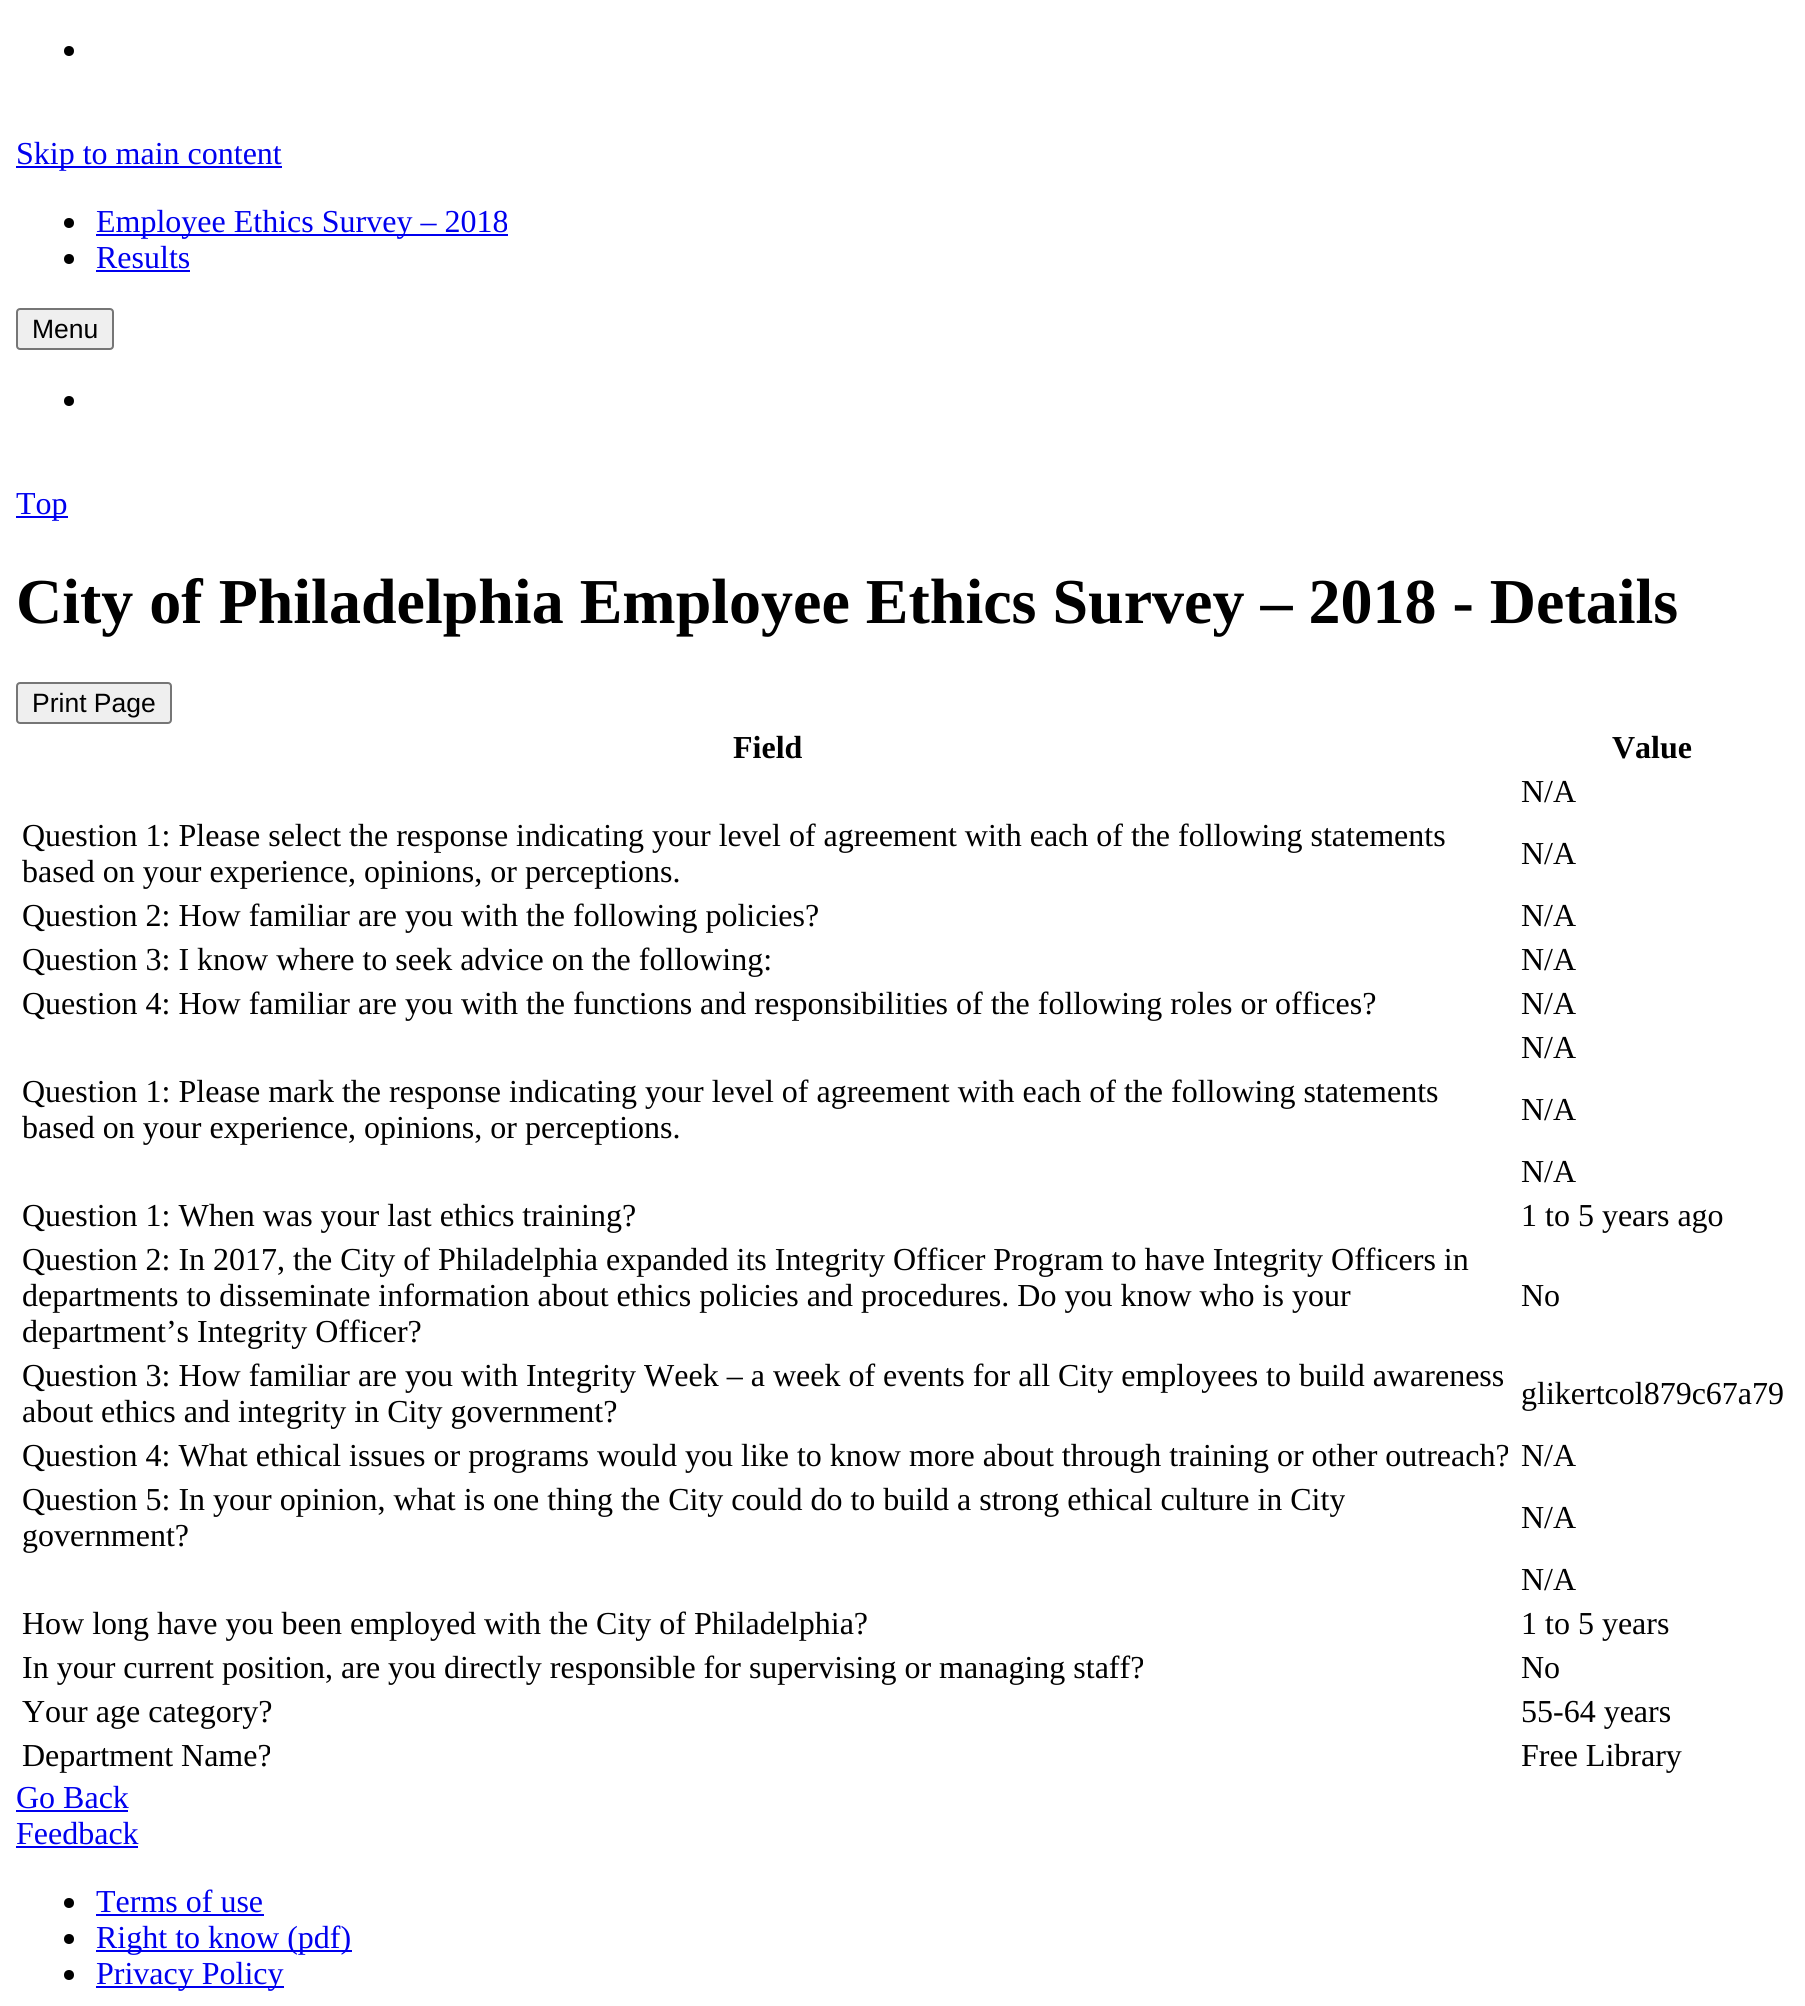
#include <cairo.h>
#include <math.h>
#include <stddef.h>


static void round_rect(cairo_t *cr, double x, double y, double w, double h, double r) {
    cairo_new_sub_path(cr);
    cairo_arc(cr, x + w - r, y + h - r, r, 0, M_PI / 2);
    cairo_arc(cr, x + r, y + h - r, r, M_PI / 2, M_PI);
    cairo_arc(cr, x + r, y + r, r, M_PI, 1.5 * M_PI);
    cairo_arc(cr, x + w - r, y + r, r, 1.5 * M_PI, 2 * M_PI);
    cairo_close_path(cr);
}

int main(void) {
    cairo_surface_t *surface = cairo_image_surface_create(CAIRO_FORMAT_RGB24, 1805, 2006);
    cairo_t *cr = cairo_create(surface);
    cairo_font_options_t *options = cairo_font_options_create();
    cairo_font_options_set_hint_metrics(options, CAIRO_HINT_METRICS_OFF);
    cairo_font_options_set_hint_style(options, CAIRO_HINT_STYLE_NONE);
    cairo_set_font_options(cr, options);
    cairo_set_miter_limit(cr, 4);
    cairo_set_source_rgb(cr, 1, 1, 1);
    cairo_paint(cr);
    cairo_set_source_rgb(cr, 0, 0, 0);
    cairo_arc(cr, 69, 51, 5, 0, 2 * M_PI);
    cairo_fill(cr);
    cairo_set_source_rgb(cr, 0, 0, 0.933);
    cairo_rectangle(cr, 16, 166, 266, 2);
    cairo_fill(cr);
    cairo_select_font_face(cr, "Liberation Serif", CAIRO_FONT_SLANT_NORMAL, CAIRO_FONT_WEIGHT_NORMAL);
    cairo_set_font_size(cr, 32);
    cairo_move_to(cr, 16, 164);
    cairo_show_text(cr, "Skip to main content");
    cairo_set_source_rgb(cr, 0, 0, 0);
    cairo_new_path(cr);
    cairo_arc(cr, 69, 223, 5, 0, 2 * M_PI);
    cairo_fill(cr);
    cairo_set_source_rgb(cr, 0, 0, 0.933);
    cairo_rectangle(cr, 96, 234, 412, 2);
    cairo_fill(cr);
    cairo_move_to(cr, 96, 232);
    cairo_show_text(cr, "Employee Ethics Survey – 2018");
    cairo_set_source_rgb(cr, 0, 0, 0);
    cairo_new_path(cr);
    cairo_arc(cr, 69, 259, 5, 0, 2 * M_PI);
    cairo_fill(cr);
    cairo_set_source_rgb(cr, 0, 0, 0.933);
    cairo_move_to(cr, 96, 268);
    cairo_show_text(cr, "Results");
    cairo_rectangle(cr, 96, 270, 94, 2);
    cairo_fill(cr);
    cairo_set_source_rgb(cr, 0.937, 0.937, 0.937);
    round_rect(cr, 17, 309, 96, 40, 3);
    cairo_fill_preserve(cr);
    cairo_set_source_rgb(cr, 0.463, 0.463, 0.463);
    cairo_stroke(cr);
    cairo_select_font_face(cr, "Liberation Sans", CAIRO_FONT_SLANT_NORMAL, CAIRO_FONT_WEIGHT_NORMAL);
    cairo_set_font_size(cr, 26.5);
    cairo_set_source_rgb(cr, 0, 0, 0);
    cairo_move_to(cr, 32, 338);
    cairo_show_text(cr, "Menu");
    cairo_new_path(cr);
    cairo_arc(cr, 69, 401, 5, 0, 2 * M_PI);
    cairo_fill(cr);
    cairo_set_source_rgb(cr, 0, 0, 0.933);
    cairo_rectangle(cr, 16, 516, 52, 2);
    cairo_fill(cr);
    cairo_select_font_face(cr, "Liberation Serif", CAIRO_FONT_SLANT_NORMAL, CAIRO_FONT_WEIGHT_NORMAL);
    cairo_set_font_size(cr, 32);
    cairo_move_to(cr, 16, 514);
    cairo_show_text(cr, "Top");
    cairo_select_font_face(cr, "Liberation Serif", CAIRO_FONT_SLANT_NORMAL, CAIRO_FONT_WEIGHT_BOLD);
    cairo_set_font_size(cr, 64);
    cairo_set_source_rgb(cr, 0, 0, 0);
    cairo_move_to(cr, 16, 623);
    cairo_show_text(cr, "City of Philadelphia Employee Ethics Survey – 2018 - Details");
    cairo_set_source_rgb(cr, 0.937, 0.937, 0.937);
    round_rect(cr, 17, 683, 154, 40, 3);
    cairo_fill_preserve(cr);
    cairo_set_source_rgb(cr, 0.463, 0.463, 0.463);
    cairo_stroke(cr);
    cairo_select_font_face(cr, "Liberation Sans", CAIRO_FONT_SLANT_NORMAL, CAIRO_FONT_WEIGHT_NORMAL);
    cairo_set_font_size(cr, 26.5);
    cairo_set_source_rgb(cr, 0, 0, 0);
    cairo_move_to(cr, 32, 712);
    cairo_show_text(cr, "Print Page");
    cairo_select_font_face(cr, "Liberation Serif", CAIRO_FONT_SLANT_NORMAL, CAIRO_FONT_WEIGHT_BOLD);
    cairo_set_font_size(cr, 32);
    cairo_move_to(cr, 733, 758);
    cairo_show_text(cr, "Field");
    cairo_move_to(cr, 1612, 758);
    cairo_show_text(cr, "Value");
    cairo_select_font_face(cr, "Liberation Serif", CAIRO_FONT_SLANT_NORMAL, CAIRO_FONT_WEIGHT_NORMAL);
    cairo_move_to(cr, 1521, 802);
    cairo_show_text(cr, "N/A");
    cairo_move_to(cr, 22, 846);
    cairo_show_text(cr, "Question 1: Please select the response indicating your level of agreement with each of the following statements");
    cairo_move_to(cr, 22, 882);
    cairo_show_text(cr, "based on your experience, opinions, or perceptions.");
    cairo_move_to(cr, 1521, 864);
    cairo_show_text(cr, "N/A");
    cairo_move_to(cr, 22, 926);
    cairo_show_text(cr, "Question 2: How familiar are you with the following policies?");
    cairo_move_to(cr, 1521, 926);
    cairo_show_text(cr, "N/A");
    cairo_move_to(cr, 22, 970);
    cairo_show_text(cr, "Question 3: I know where to seek advice on the following:");
    cairo_move_to(cr, 1521, 970);
    cairo_show_text(cr, "N/A");
    cairo_move_to(cr, 22, 1014);
    cairo_show_text(cr, "Question 4: How familiar are you with the functions and responsibilities of the following roles or offices?");
    cairo_move_to(cr, 1521, 1014);
    cairo_show_text(cr, "N/A");
    cairo_move_to(cr, 1521, 1058);
    cairo_show_text(cr, "N/A");
    cairo_move_to(cr, 22, 1102);
    cairo_show_text(cr, "Question 1: Please mark the response indicating your level of agreement with each of the following statements");
    cairo_move_to(cr, 22, 1138);
    cairo_show_text(cr, "based on your experience, opinions, or perceptions.");
    cairo_move_to(cr, 1521, 1120);
    cairo_show_text(cr, "N/A");
    cairo_move_to(cr, 1521, 1182);
    cairo_show_text(cr, "N/A");
    cairo_move_to(cr, 22, 1226);
    cairo_show_text(cr, "Question 1: When was your last ethics training?");
    cairo_move_to(cr, 1521, 1226);
    cairo_show_text(cr, "1 to 5 years ago");
    cairo_move_to(cr, 22, 1270);
    cairo_show_text(cr, "Question 2: In 2017, the City of Philadelphia expanded its Integrity Officer Program to have Integrity Officers in");
    cairo_move_to(cr, 22, 1306);
    cairo_show_text(cr, "departments to disseminate information about ethics policies and procedures. Do you know who is your");
    cairo_move_to(cr, 22, 1342);
    cairo_show_text(cr, "department’s Integrity Officer?");
    cairo_move_to(cr, 1521, 1306);
    cairo_show_text(cr, "No");
    cairo_move_to(cr, 22, 1386);
    cairo_show_text(cr, "Question 3: How familiar are you with Integrity Week – a week of events for all City employees to build awareness");
    cairo_move_to(cr, 22, 1422);
    cairo_show_text(cr, "about ethics and integrity in City government?");
    cairo_move_to(cr, 1521, 1404);
    cairo_show_text(cr, "glikertcol879c67a79");
    cairo_move_to(cr, 22, 1466);
    cairo_show_text(cr, "Question 4: What ethical issues or programs would you like to know more about through training or other outreach?");
    cairo_move_to(cr, 1521, 1466);
    cairo_show_text(cr, "N/A");
    cairo_move_to(cr, 22, 1510);
    cairo_show_text(cr, "Question 5: In your opinion, what is one thing the City could do to build a strong ethical culture in City");
    cairo_move_to(cr, 22, 1546);
    cairo_show_text(cr, "government?");
    cairo_move_to(cr, 1521, 1528);
    cairo_show_text(cr, "N/A");
    cairo_move_to(cr, 1521, 1590);
    cairo_show_text(cr, "N/A");
    cairo_move_to(cr, 22, 1634);
    cairo_show_text(cr, "How long have you been employed with the City of Philadelphia?");
    cairo_move_to(cr, 1521, 1634);
    cairo_show_text(cr, "1 to 5 years");
    cairo_move_to(cr, 22, 1678);
    cairo_show_text(cr, "In your current position, are you directly responsible for supervising or managing staff?");
    cairo_move_to(cr, 1521, 1678);
    cairo_show_text(cr, "No");
    cairo_move_to(cr, 22, 1722);
    cairo_show_text(cr, "Your age category?");
    cairo_move_to(cr, 1521, 1722);
    cairo_show_text(cr, "55-64 years");
    cairo_move_to(cr, 22, 1766);
    cairo_show_text(cr, "Department Name?");
    cairo_move_to(cr, 1521, 1766);
    cairo_show_text(cr, "Free Library");
    cairo_set_source_rgb(cr, 0, 0, 0.933);
    cairo_move_to(cr, 16, 1808);
    cairo_show_text(cr, "Go Back");
    cairo_rectangle(cr, 16, 1810, 112, 2);
    cairo_fill(cr);
    cairo_move_to(cr, 16, 1844);
    cairo_show_text(cr, "Feedback");
    cairo_rectangle(cr, 16, 1846, 122, 2);
    cairo_fill(cr);
    cairo_set_source_rgb(cr, 0, 0, 0);
    cairo_arc(cr, 69, 1903, 5, 0, 2 * M_PI);
    cairo_fill(cr);
    cairo_set_source_rgb(cr, 0, 0, 0.933);
    cairo_move_to(cr, 96, 1912);
    cairo_show_text(cr, "Terms of use");
    cairo_rectangle(cr, 96, 1914, 168, 2);
    cairo_fill(cr);
    cairo_set_source_rgb(cr, 0, 0, 0);
    cairo_arc(cr, 69, 1939, 5, 0, 2 * M_PI);
    cairo_fill(cr);
    cairo_set_source_rgb(cr, 0, 0, 0.933);
    cairo_rectangle(cr, 96, 1950, 256, 2);
    cairo_fill(cr);
    cairo_move_to(cr, 96, 1948);
    cairo_show_text(cr, "Right to know (pdf)");
    cairo_set_source_rgb(cr, 0, 0, 0);
    cairo_new_path(cr);
    cairo_arc(cr, 69, 1975, 5, 0, 2 * M_PI);
    cairo_fill(cr);
    cairo_set_source_rgb(cr, 0, 0, 0.933);
    cairo_rectangle(cr, 96, 1986, 188, 2);
    cairo_fill(cr);
    cairo_move_to(cr, 96, 1984);
    cairo_show_text(cr, "Privacy Policy");
    cairo_surface_write_to_png(surface, "page.png");
    cairo_font_options_destroy(options);
    cairo_destroy(cr);
    cairo_surface_destroy(surface);
    return 0;
}
